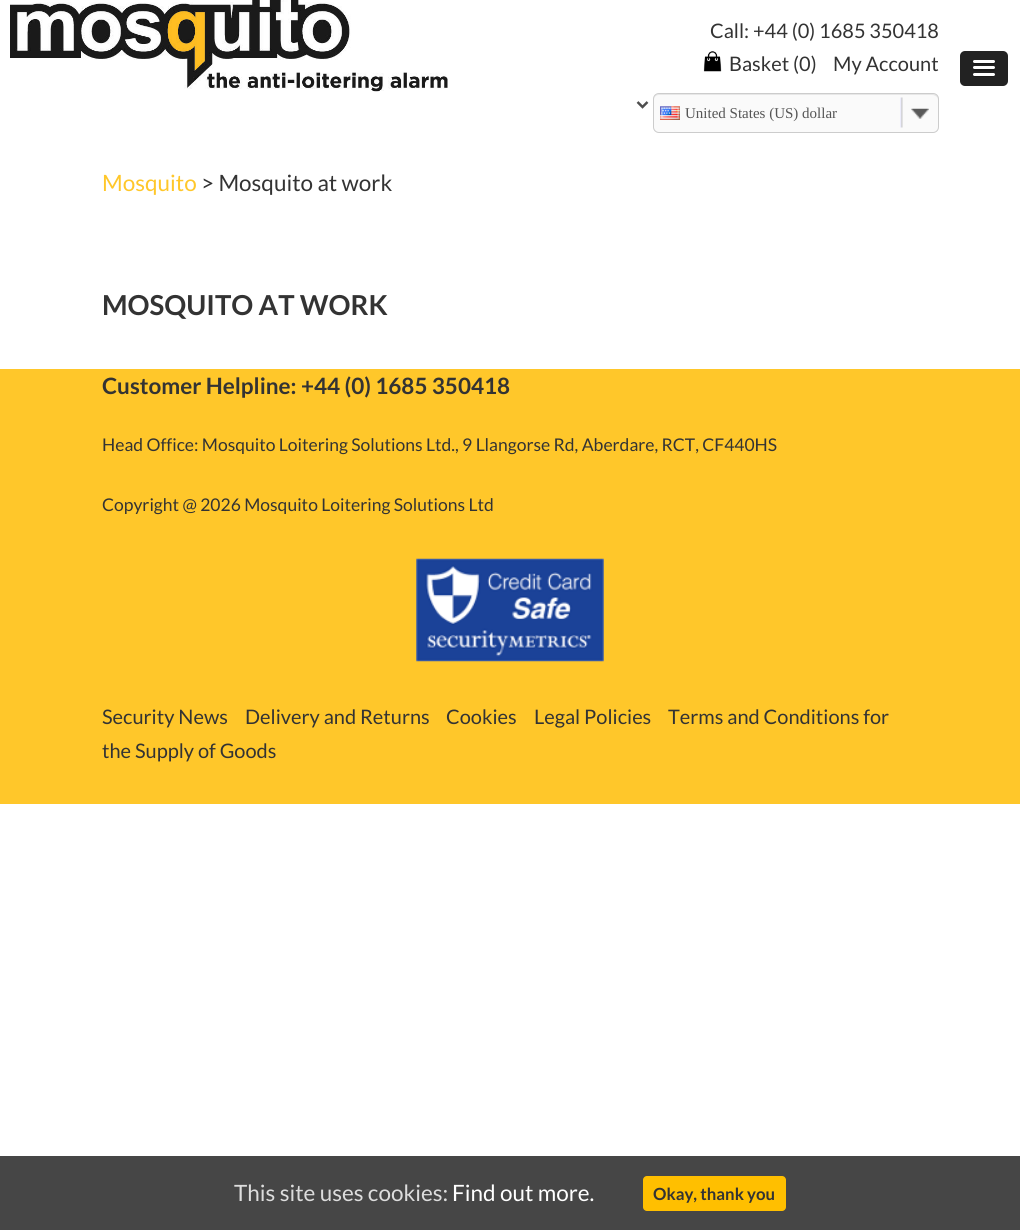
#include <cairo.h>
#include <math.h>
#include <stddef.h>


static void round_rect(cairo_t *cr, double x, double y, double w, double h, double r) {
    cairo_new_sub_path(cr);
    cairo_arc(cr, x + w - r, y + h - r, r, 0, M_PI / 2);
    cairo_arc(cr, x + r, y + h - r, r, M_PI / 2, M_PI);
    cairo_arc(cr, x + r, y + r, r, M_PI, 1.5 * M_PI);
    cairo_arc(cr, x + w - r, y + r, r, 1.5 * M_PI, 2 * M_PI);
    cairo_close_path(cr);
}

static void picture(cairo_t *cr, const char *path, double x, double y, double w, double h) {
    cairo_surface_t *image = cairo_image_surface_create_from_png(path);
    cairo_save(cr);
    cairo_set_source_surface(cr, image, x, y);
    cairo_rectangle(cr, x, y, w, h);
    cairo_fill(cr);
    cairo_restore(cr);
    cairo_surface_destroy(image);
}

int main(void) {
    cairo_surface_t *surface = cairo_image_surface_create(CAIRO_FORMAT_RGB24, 1020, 1230);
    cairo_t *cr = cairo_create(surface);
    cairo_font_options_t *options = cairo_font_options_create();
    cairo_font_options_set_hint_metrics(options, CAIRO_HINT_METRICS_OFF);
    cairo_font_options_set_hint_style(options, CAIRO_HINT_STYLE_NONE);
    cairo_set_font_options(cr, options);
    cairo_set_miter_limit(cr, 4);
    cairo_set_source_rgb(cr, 1, 1, 1);
    cairo_paint(cr);
    picture(cr, "img1.png", 10, 0, 438, 92);
    cairo_select_font_face(cr, "Lato", CAIRO_FONT_SLANT_NORMAL, CAIRO_FONT_WEIGHT_NORMAL);
    cairo_set_font_size(cr, 20);
    cairo_set_source_rgb(cr, 0.2, 0.2, 0.2);
    cairo_move_to(cr, 710, 38);
    cairo_show_text(cr, "Call: +44 (0) 1685 350418");
    picture(cr, "img2.png", 703, 51, 19, 21);
    cairo_move_to(cr, 729, 71);
    cairo_show_text(cr, "Basket (0)");
    cairo_move_to(cr, 833, 71);
    cairo_show_text(cr, "My Account");
    cairo_new_path(cr);
    cairo_move_to(cr, 637.5, 102);
    cairo_line_to(cr, 642.5, 107);
    cairo_line_to(cr, 647.5, 102);
    cairo_set_source_rgb(cr, 0.306, 0.306, 0.306);
    cairo_set_line_width(cr, 2.5);
    cairo_stroke(cr);
    cairo_set_source_rgb(cr, 0.98, 0.98, 0.98);
    round_rect(cr, 653, 93, 286, 40, 6);
    cairo_fill(cr);
    cairo_set_source_rgb(cr, 0.906, 0.906, 0.906);
    cairo_new_path(cr);
    cairo_move_to(cr, 659, 95);
    cairo_line_to(cr, 932, 95);
    cairo_curve_to(cr, 935, 95, 938, 97, 938, 100);
    cairo_line_to(cr, 938, 99);
    cairo_curve_to(cr, 938, 96, 936, 94, 933, 94);
    cairo_line_to(cr, 659, 94);
    cairo_curve_to(cr, 656, 94, 654, 96, 654, 99);
    cairo_line_to(cr, 654, 100);
    cairo_curve_to(cr, 654, 97, 656, 95, 659, 95);
    cairo_close_path(cr);
    cairo_fill(cr);
    round_rect(cr, 653.5, 93.5, 285, 39, 5.5);
    cairo_set_source_rgb(cr, 0.8, 0.8, 0.8);
    cairo_set_line_width(cr, 1);
    cairo_stroke(cr);
    picture(cr, "img3.png", 660, 106, 20, 14);
    cairo_select_font_face(cr, "Liberation Serif", CAIRO_FONT_SLANT_NORMAL, CAIRO_FONT_WEIGHT_NORMAL);
    cairo_set_font_size(cr, 15);
    cairo_set_source_rgb(cr, 0.333, 0.333, 0.333);
    cairo_move_to(cr, 685, 118);
    cairo_show_text(cr, "United States (US) dollar");
    picture(cr, "img4.png", 900, 97, 29, 31);
    cairo_select_font_face(cr, "Lato", CAIRO_FONT_SLANT_NORMAL, CAIRO_FONT_WEIGHT_NORMAL);
    cairo_set_font_size(cr, 22.5);
    cairo_set_source_rgb(cr, 1, 0.78, 0.165);
    cairo_move_to(cr, 102, 191);
    cairo_show_text(cr, "Mosquito");
    cairo_set_source_rgb(cr, 0.2, 0.2, 0.2);
    cairo_move_to(cr, 201, 191);
    cairo_show_text(cr, "> Mosquito at work");
    cairo_select_font_face(cr, "Lato", CAIRO_FONT_SLANT_NORMAL, CAIRO_FONT_WEIGHT_BOLD);
    cairo_set_font_size(cr, 27.5);
    cairo_move_to(cr, 102, 315);
    cairo_show_text(cr, "MOSQUITO AT WORK");
    cairo_set_source_rgb(cr, 1, 0.78, 0.165);
    cairo_rectangle(cr, 0, 369, 1020, 435);
    cairo_fill(cr);
    cairo_set_font_size(cr, 22.5);
    cairo_set_source_rgb(cr, 0.2, 0.2, 0.2);
    cairo_move_to(cr, 102, 394);
    cairo_show_text(cr, "Customer Helpline: +44 (0) 1685 350418");
    cairo_select_font_face(cr, "Lato", CAIRO_FONT_SLANT_NORMAL, CAIRO_FONT_WEIGHT_NORMAL);
    cairo_set_font_size(cr, 17.5);
    cairo_move_to(cr, 102, 451);
    cairo_show_text(cr, "Head Office: Mosquito Loitering Solutions Ltd., 9 Llangorse Rd, Aberdare, RCT, CF440HS");
    cairo_move_to(cr, 102, 511);
    cairo_show_text(cr, "Copyright @ 2026 Mosquito Loitering Solutions Ltd");
    picture(cr, "img5.png", 416, 558, 188, 104);
    cairo_set_font_size(cr, 20);
    cairo_move_to(cr, 102, 724);
    cairo_show_text(cr, "Security News");
    cairo_move_to(cr, 245, 724);
    cairo_show_text(cr, "Delivery and Returns");
    cairo_move_to(cr, 446, 724);
    cairo_show_text(cr, "Cookies");
    cairo_move_to(cr, 534, 724);
    cairo_show_text(cr, "Legal Policies");
    cairo_move_to(cr, 668, 724);
    cairo_show_text(cr, "Terms and Conditions for");
    cairo_move_to(cr, 102, 758);
    cairo_show_text(cr, "the Supply of Goods");
    cairo_set_source_rgb(cr, 0.275, 0.275, 0.275);
    cairo_rectangle(cr, 0, 1156, 1020, 74);
    cairo_fill(cr);
    cairo_set_font_size(cr, 22.5);
    cairo_set_source_rgb(cr, 0.867, 0.867, 0.867);
    cairo_move_to(cr, 234, 1201);
    cairo_show_text(cr, "This site uses cookies:");
    cairo_set_source_rgb(cr, 1, 1, 1);
    cairo_move_to(cr, 452, 1201);
    cairo_show_text(cr, "Find out more.");
    cairo_set_source_rgb(cr, 1, 0.749, 0);
    round_rect(cr, 643, 1176, 143, 35, 4);
    cairo_fill(cr);
    cairo_select_font_face(cr, "Lato", CAIRO_FONT_SLANT_NORMAL, CAIRO_FONT_WEIGHT_BOLD);
    cairo_set_font_size(cr, 16.75);
    cairo_set_source_rgb(cr, 0.2, 0.2, 0.2);
    cairo_move_to(cr, 653, 1200);
    cairo_show_text(cr, "Okay, thank you");
    cairo_set_source_rgb(cr, 0.133, 0.133, 0.133);
    round_rect(cr, 960, 51, 48, 35, 5);
    cairo_fill(cr);
    cairo_set_source_rgb(cr, 0.102, 0.102, 0.102);
    cairo_new_path(cr);
    cairo_move_to(cr, 973, 62.5);
    cairo_curve_to(cr, 972.5, 64.5, 976.5, 64, 977.5, 64);
    cairo_line_to(cr, 990.5, 64);
    cairo_curve_to(cr, 991, 64, 996, 64.5, 995, 62);
    cairo_line_to(cr, 994, 62.5);
    cairo_curve_to(cr, 992, 62.5, 973.5, 62.5, 973, 62.5);
    cairo_close_path(cr);
    cairo_fill(cr);
    cairo_set_source_rgb(cr, 1, 1, 1);
    round_rect(cr, 973, 60, 22, 3, 1.5);
    cairo_fill(cr);
    cairo_set_source_rgb(cr, 0.102, 0.102, 0.102);
    cairo_new_path(cr);
    cairo_move_to(cr, 973.5, 68.5);
    cairo_curve_to(cr, 971.5, 71.5, 977, 71, 977.5, 71);
    cairo_line_to(cr, 984, 71);
    cairo_curve_to(cr, 986, 71, 994, 71.5, 994.5, 70.5);
    cairo_curve_to(cr, 995, 69.5, 995, 69, 994.5, 68.5);
    cairo_curve_to(cr, 994, 69, 974.5, 69, 973.5, 68.5);
    cairo_close_path(cr);
    cairo_fill(cr);
    cairo_set_source_rgb(cr, 1, 1, 1);
    round_rect(cr, 973, 66, 22, 3, 1.5);
    cairo_fill(cr);
    cairo_set_source_rgb(cr, 0.102, 0.102, 0.102);
    cairo_new_path(cr);
    cairo_move_to(cr, 973, 75);
    cairo_curve_to(cr, 972, 77.5, 977, 77, 977.5, 77);
    cairo_line_to(cr, 990.5, 77);
    cairo_curve_to(cr, 990.5, 77, 997, 77.5, 994.5, 74.5);
    cairo_line_to(cr, 994, 75);
    cairo_close_path(cr);
    cairo_fill(cr);
    cairo_set_source_rgb(cr, 1, 1, 1);
    round_rect(cr, 973, 73, 22, 3, 1.5);
    cairo_fill(cr);
    cairo_surface_write_to_png(surface, "page.png");
    cairo_font_options_destroy(options);
    cairo_destroy(cr);
    cairo_surface_destroy(surface);
    return 0;
}
